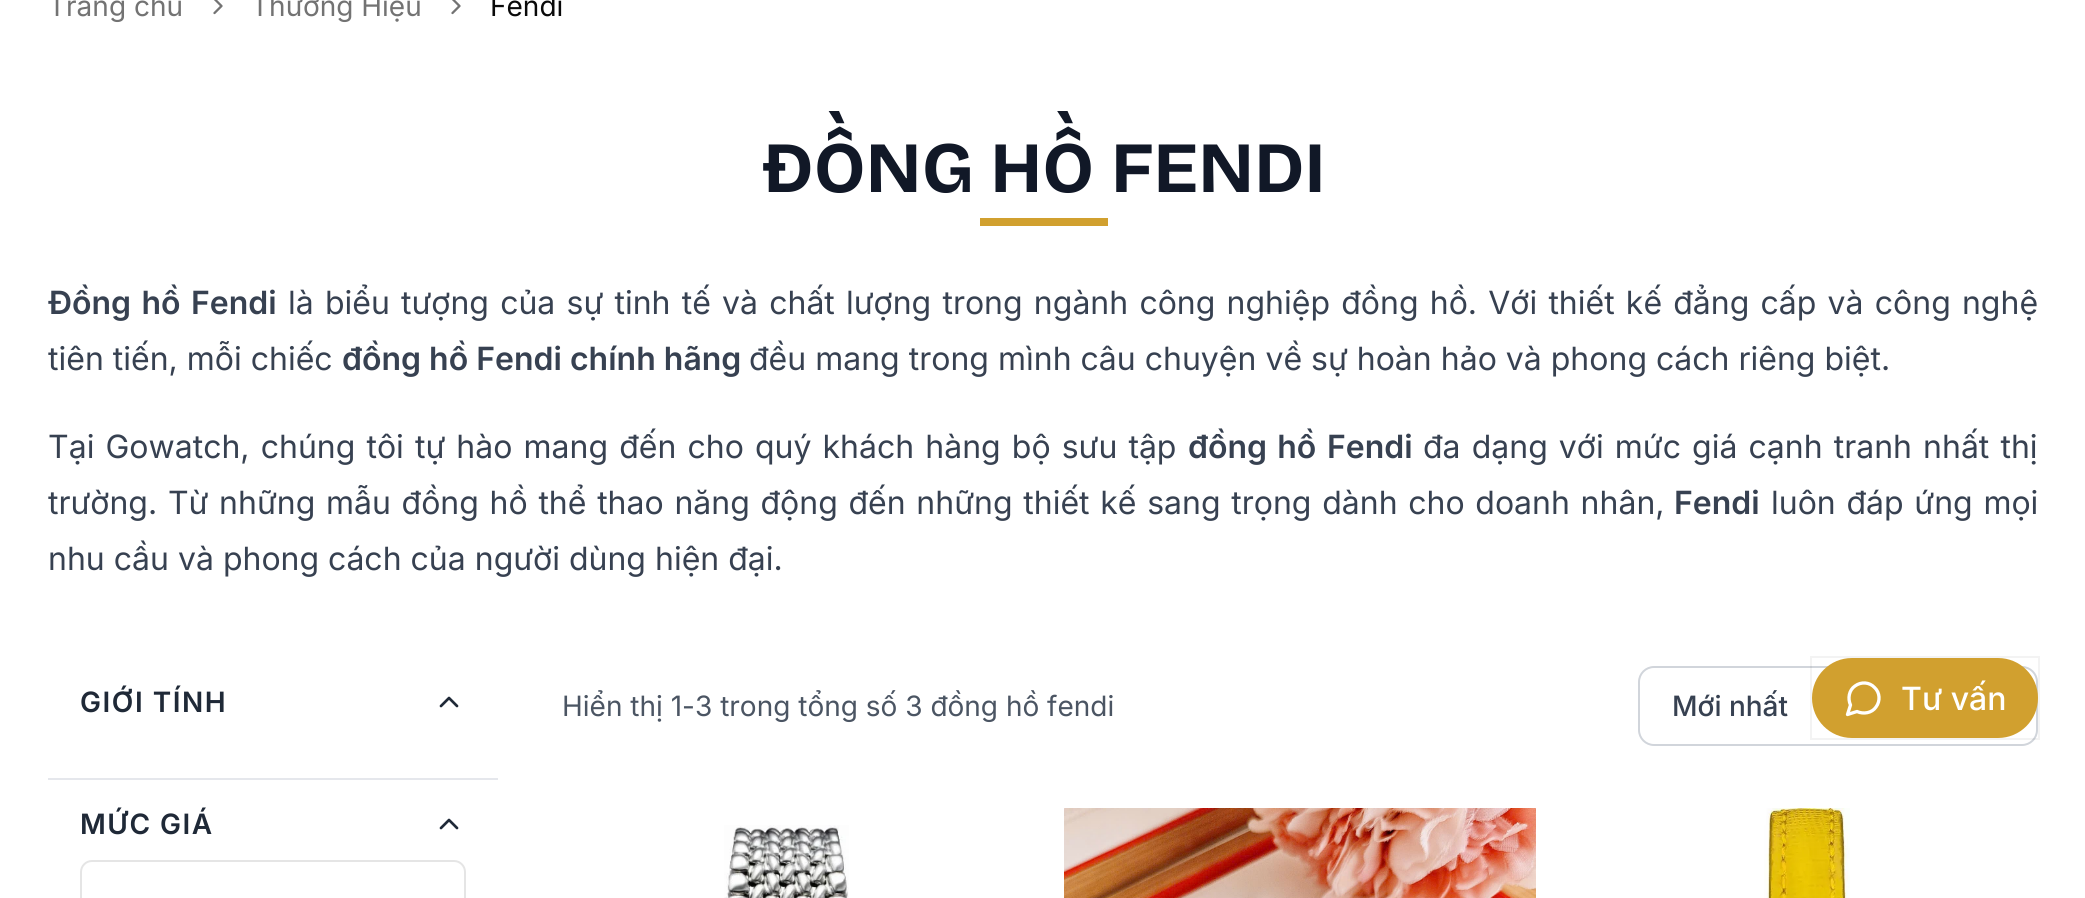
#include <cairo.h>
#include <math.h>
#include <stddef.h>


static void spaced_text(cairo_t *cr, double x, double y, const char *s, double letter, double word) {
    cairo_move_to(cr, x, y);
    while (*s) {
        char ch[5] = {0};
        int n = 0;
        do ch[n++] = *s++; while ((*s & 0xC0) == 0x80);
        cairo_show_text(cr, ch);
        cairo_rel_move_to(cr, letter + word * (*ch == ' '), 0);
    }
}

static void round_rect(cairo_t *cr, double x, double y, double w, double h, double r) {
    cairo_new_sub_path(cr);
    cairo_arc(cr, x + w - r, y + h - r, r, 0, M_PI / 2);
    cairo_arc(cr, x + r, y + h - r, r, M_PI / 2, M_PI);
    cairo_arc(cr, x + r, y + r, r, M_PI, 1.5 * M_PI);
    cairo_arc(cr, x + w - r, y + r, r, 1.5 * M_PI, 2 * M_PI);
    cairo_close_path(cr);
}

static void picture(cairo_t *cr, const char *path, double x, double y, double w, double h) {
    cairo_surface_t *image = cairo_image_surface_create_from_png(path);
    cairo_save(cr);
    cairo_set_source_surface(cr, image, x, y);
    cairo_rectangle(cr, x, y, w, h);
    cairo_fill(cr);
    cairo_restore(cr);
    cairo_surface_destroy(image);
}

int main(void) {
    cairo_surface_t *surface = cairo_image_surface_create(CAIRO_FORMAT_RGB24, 2085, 898);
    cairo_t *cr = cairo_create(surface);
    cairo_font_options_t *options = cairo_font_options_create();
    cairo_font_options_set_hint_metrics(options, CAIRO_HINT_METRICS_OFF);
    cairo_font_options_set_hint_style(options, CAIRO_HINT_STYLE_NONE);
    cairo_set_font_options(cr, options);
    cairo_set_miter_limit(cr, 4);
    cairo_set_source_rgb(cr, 1, 1, 1);
    cairo_paint(cr);
    cairo_select_font_face(cr, "Inter", CAIRO_FONT_SLANT_NORMAL, CAIRO_FONT_WEIGHT_NORMAL);
    cairo_set_font_size(cr, 28);
    cairo_set_source_rgb(cr, 0.451, 0.451, 0.451);
    cairo_move_to(cr, 48, 16);
    cairo_show_text(cr, "Trang chủ");
    cairo_new_path(cr);
    cairo_move_to(cr, 214.5, 13);
    cairo_line_to(cr, 221.5, 6);
    cairo_line_to(cr, 214.5, -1);
    cairo_set_line_width(cr, 2.3);
    cairo_set_line_cap(cr, CAIRO_LINE_CAP_ROUND);
    cairo_set_line_join(cr, CAIRO_LINE_JOIN_ROUND);
    cairo_stroke(cr);
    cairo_move_to(cr, 251, 16);
    cairo_show_text(cr, "Thương Hiệu");
    cairo_new_path(cr);
    cairo_move_to(cr, 452.5, 13);
    cairo_line_to(cr, 459.5, 6);
    cairo_line_to(cr, 452.5, -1);
    cairo_stroke(cr);
    cairo_set_source_rgb(cr, 0.039, 0.039, 0.039);
    cairo_move_to(cr, 490, 16);
    cairo_show_text(cr, "Fendi");
    cairo_select_font_face(cr, "Bricolage Grotesque", CAIRO_FONT_SLANT_NORMAL, CAIRO_FONT_WEIGHT_BOLD);
    cairo_set_font_size(cr, 72);
    cairo_set_source_rgb(cr, 0.067, 0.094, 0.153);
    cairo_move_to(cr, 760, 192);
    cairo_show_text(cr, "ĐỒNG HỒ FENDI");
    cairo_set_source_rgb(cr, 0.82, 0.627, 0.184);
    cairo_rectangle(cr, 980, 218, 128, 8);
    cairo_fill(cr);
    cairo_select_font_face(cr, "Inter SemiBold", CAIRO_FONT_SLANT_NORMAL, CAIRO_FONT_WEIGHT_NORMAL);
    cairo_set_font_size(cr, 32);
    cairo_set_source_rgb(cr, 0.216, 0.255, 0.318);
    spaced_text(cr, 48, 314, "Đồng hồ", 0, 2.2);
    cairo_move_to(cr, 191, 314);
    cairo_show_text(cr, "Fendi");
    cairo_select_font_face(cr, "Inter", CAIRO_FONT_SLANT_NORMAL, CAIRO_FONT_WEIGHT_NORMAL);
    spaced_text(cr, 288, 314, "là biểu tượng của sự tinh tế và chất lượng trong ngành công nghiệp đồng hồ. Với thiết kế đẳng cấp và công nghệ", 0, 2.2);
    cairo_move_to(cr, 48, 370);
    cairo_show_text(cr, "tiên tiến, mỗi chiếc");
    cairo_select_font_face(cr, "Inter SemiBold", CAIRO_FONT_SLANT_NORMAL, CAIRO_FONT_WEIGHT_NORMAL);
    cairo_move_to(cr, 342, 370);
    cairo_show_text(cr, "đồng hồ Fendi chính hãng");
    cairo_select_font_face(cr, "Inter", CAIRO_FONT_SLANT_NORMAL, CAIRO_FONT_WEIGHT_NORMAL);
    cairo_move_to(cr, 749, 370);
    cairo_show_text(cr, "đều mang trong mình câu chuyện về sự hoàn hảo và phong cách riêng biệt.");
    spaced_text(cr, 48, 458, "Tại Gowatch, chúng tôi tự hào mang đến cho quý khách hàng bộ sưu tập", 0, 2.1);
    cairo_select_font_face(cr, "Inter SemiBold", CAIRO_FONT_SLANT_NORMAL, CAIRO_FONT_WEIGHT_NORMAL);
    spaced_text(cr, 1188, 458, "đồng hồ", 0, 2.1);
    cairo_move_to(cr, 1327, 458);
    cairo_show_text(cr, "Fendi");
    cairo_select_font_face(cr, "Inter", CAIRO_FONT_SLANT_NORMAL, CAIRO_FONT_WEIGHT_NORMAL);
    spaced_text(cr, 1423, 458, "đa dạng với mức giá cạnh tranh nhất thị", 0, 2.1);
    spaced_text(cr, 48, 514, "trường. Từ những mẫu đồng hồ thể thao năng động đến những thiết kế sang trọng dành cho doanh nhân,", 0, 1.7);
    cairo_select_font_face(cr, "Inter SemiBold", CAIRO_FONT_SLANT_NORMAL, CAIRO_FONT_WEIGHT_NORMAL);
    cairo_move_to(cr, 1674, 514);
    cairo_show_text(cr, "Fendi");
    cairo_select_font_face(cr, "Inter", CAIRO_FONT_SLANT_NORMAL, CAIRO_FONT_WEIGHT_NORMAL);
    spaced_text(cr, 1771, 514, "luôn đáp ứng mọi", 0, 1.7);
    cairo_move_to(cr, 48, 570);
    cairo_show_text(cr, "nhu cầu và phong cách của người dùng hiện đại.");
    cairo_select_font_face(cr, "Inter SemiBold", CAIRO_FONT_SLANT_NORMAL, CAIRO_FONT_WEIGHT_NORMAL);
    cairo_set_font_size(cr, 28);
    cairo_set_source_rgb(cr, 0.122, 0.161, 0.216);
    spaced_text(cr, 80, 712, "GIỚI TÍNH", 1.5, 0);
    cairo_new_path(cr);
    cairo_move_to(cr, 457, 706);
    cairo_line_to(cr, 449, 698);
    cairo_line_to(cr, 441, 706);
    cairo_set_line_width(cr, 2.7);
    cairo_stroke(cr);
    cairo_set_source_rgb(cr, 0.898, 0.906, 0.922);
    cairo_rectangle(cr, 48, 778, 450, 2);
    cairo_fill(cr);
    cairo_set_source_rgb(cr, 0.122, 0.161, 0.216);
    spaced_text(cr, 80, 834, "MỨC GIÁ", 1.5, 0);
    cairo_new_path(cr);
    cairo_move_to(cr, 457, 828);
    cairo_line_to(cr, 449, 820);
    cairo_line_to(cr, 441, 828);
    cairo_stroke(cr);
    round_rect(cr, 81, 861, 384, 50, 11);
    cairo_set_source_rgb(cr, 0.898, 0.898, 0.898);
    cairo_set_line_width(cr, 2);
    cairo_set_line_cap(cr, CAIRO_LINE_CAP_BUTT);
    cairo_set_line_join(cr, CAIRO_LINE_JOIN_MITER);
    cairo_stroke(cr);
    cairo_select_font_face(cr, "Inter", CAIRO_FONT_SLANT_NORMAL, CAIRO_FONT_WEIGHT_NORMAL);
    cairo_set_source_rgb(cr, 0.294, 0.333, 0.388);
    cairo_move_to(cr, 562, 716);
    cairo_show_text(cr, "Hiển thị 1-3 trong tổng số 3 đồng hồ fendi");
    round_rect(cr, 1639, 667, 398, 78, 15);
    cairo_set_source_rgb(cr, 0.82, 0.835, 0.859);
    cairo_stroke(cr);
    cairo_select_font_face(cr, "Inter Medium", CAIRO_FONT_SLANT_NORMAL, CAIRO_FONT_WEIGHT_NORMAL);
    cairo_set_source_rgb(cr, 0.216, 0.255, 0.318);
    cairo_move_to(cr, 1672, 716);
    cairo_show_text(cr, "Mới nhất");
    picture(cr, "img1.png", 724, 825, 125, 73);
    picture(cr, "img2.png", 1064, 808, 472, 90);
    picture(cr, "img3.png", 1764, 808, 86, 90);
    cairo_rectangle(cr, 1811, 657, 228, 82);
    cairo_set_source_rgba(cr, 0, 0, 0, 0.05);
    cairo_stroke(cr);
    cairo_set_source_rgb(cr, 0.82, 0.627, 0.184);
    round_rect(cr, 1812, 658, 226, 80, 40);
    cairo_fill(cr);
    cairo_new_path(cr);
    cairo_move_to(cr, 1857, 711.5);
    cairo_curve_to(cr, 1863.5, 714.5, 1872, 713, 1876, 707);
    cairo_curve_to(cr, 1880.5, 701, 1880, 692.5, 1874.5, 687.5);
    cairo_curve_to(cr, 1869.5, 682, 1861, 681.5, 1855, 686);
    cairo_curve_to(cr, 1849, 690, 1847.5, 698.5, 1850.5, 705);
    cairo_line_to(cr, 1847.5, 714.5);
    cairo_close_path(cr);
    cairo_set_source_rgb(cr, 1, 1, 1);
    cairo_set_line_width(cr, 3.3);
    cairo_set_line_cap(cr, CAIRO_LINE_CAP_ROUND);
    cairo_set_line_join(cr, CAIRO_LINE_JOIN_ROUND);
    cairo_stroke(cr);
    cairo_set_font_size(cr, 32);
    cairo_move_to(cr, 1901, 710);
    cairo_show_text(cr, "Tư vấn");
    cairo_surface_write_to_png(surface, "page.png");
    cairo_font_options_destroy(options);
    cairo_destroy(cr);
    cairo_surface_destroy(surface);
    return 0;
}
